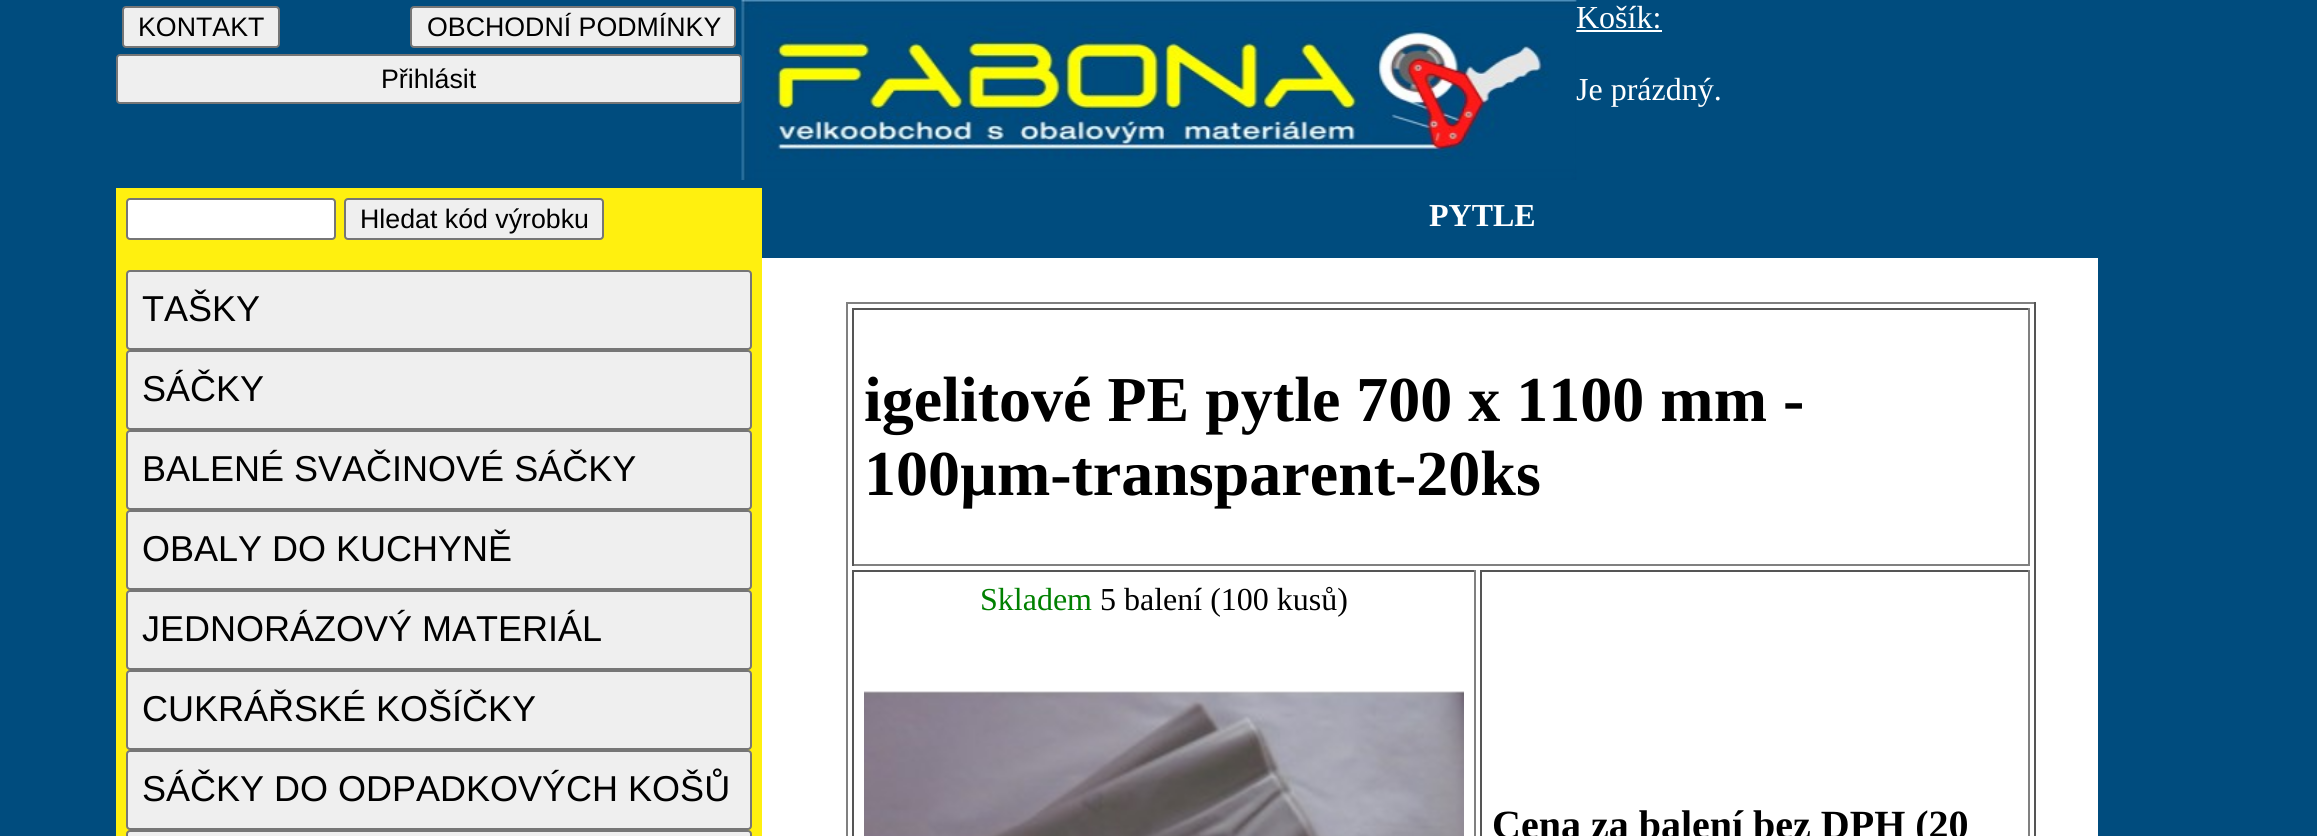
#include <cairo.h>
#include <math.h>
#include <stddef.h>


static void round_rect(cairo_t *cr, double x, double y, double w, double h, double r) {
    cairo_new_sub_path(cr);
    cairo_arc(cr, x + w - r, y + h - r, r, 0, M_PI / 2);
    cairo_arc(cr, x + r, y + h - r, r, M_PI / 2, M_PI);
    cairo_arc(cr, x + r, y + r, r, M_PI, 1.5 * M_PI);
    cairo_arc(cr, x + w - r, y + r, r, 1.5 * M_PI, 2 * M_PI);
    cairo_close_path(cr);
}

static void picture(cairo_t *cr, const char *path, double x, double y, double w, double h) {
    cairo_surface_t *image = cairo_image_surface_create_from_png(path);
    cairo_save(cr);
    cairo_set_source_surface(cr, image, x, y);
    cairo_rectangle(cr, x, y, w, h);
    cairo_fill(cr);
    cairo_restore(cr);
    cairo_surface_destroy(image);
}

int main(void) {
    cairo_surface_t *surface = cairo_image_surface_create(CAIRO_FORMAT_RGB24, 2317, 836);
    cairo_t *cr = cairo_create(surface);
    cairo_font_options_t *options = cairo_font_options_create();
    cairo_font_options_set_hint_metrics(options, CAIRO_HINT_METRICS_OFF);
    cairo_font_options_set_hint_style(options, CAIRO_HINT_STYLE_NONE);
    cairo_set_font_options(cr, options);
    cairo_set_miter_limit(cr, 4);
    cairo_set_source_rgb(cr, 0, 0.298, 0.494);
    cairo_paint(cr);
    cairo_set_source_rgb(cr, 0.937, 0.937, 0.937);
    round_rect(cr, 123, 7, 156, 40, 3);
    cairo_fill_preserve(cr);
    cairo_set_source_rgb(cr, 0.463, 0.463, 0.463);
    cairo_stroke(cr);
    cairo_select_font_face(cr, "Liberation Sans", CAIRO_FONT_SLANT_NORMAL, CAIRO_FONT_WEIGHT_NORMAL);
    cairo_set_font_size(cr, 26.75);
    cairo_set_source_rgb(cr, 0, 0, 0);
    cairo_move_to(cr, 138, 36);
    cairo_show_text(cr, "KONTAKT");
    cairo_set_source_rgb(cr, 0.937, 0.937, 0.937);
    round_rect(cr, 411, 7, 324, 40, 3);
    cairo_fill_preserve(cr);
    cairo_set_source_rgb(cr, 0.463, 0.463, 0.463);
    cairo_stroke(cr);
    cairo_set_source_rgb(cr, 0, 0, 0);
    cairo_move_to(cr, 427, 36);
    cairo_show_text(cr, "OBCHODNÍ PODMÍNKY");
    cairo_set_source_rgb(cr, 1, 1, 1);
    cairo_rectangle(cr, 1576, 30, 86, 2);
    cairo_fill(cr);
    cairo_select_font_face(cr, "Liberation Serif", CAIRO_FONT_SLANT_NORMAL, CAIRO_FONT_WEIGHT_NORMAL);
    cairo_set_font_size(cr, 32);
    cairo_move_to(cr, 1576, 100);
    cairo_show_text(cr, "Je prázdný.");
    picture(cr, "img1.png", 741, 0, 836, 180);
    cairo_set_source_rgb(cr, 0.937, 0.937, 0.937);
    round_rect(cr, 117, 55, 624, 48, 3);
    cairo_fill_preserve(cr);
    cairo_set_source_rgb(cr, 0.463, 0.463, 0.463);
    cairo_stroke(cr);
    cairo_select_font_face(cr, "Liberation Sans", CAIRO_FONT_SLANT_NORMAL, CAIRO_FONT_WEIGHT_NORMAL);
    cairo_set_font_size(cr, 26.75);
    cairo_set_source_rgb(cr, 0, 0, 0);
    cairo_move_to(cr, 381, 88);
    cairo_show_text(cr, "Přihlásit");
    cairo_select_font_face(cr, "Liberation Serif", CAIRO_FONT_SLANT_NORMAL, CAIRO_FONT_WEIGHT_NORMAL);
    cairo_set_font_size(cr, 32);
    cairo_set_source_rgb(cr, 1, 1, 1);
    cairo_move_to(cr, 1576, 28);
    cairo_show_text(cr, "Košík:");
    cairo_set_source_rgb(cr, 1, 0.941, 0.059);
    cairo_rectangle(cr, 116, 188, 646, 648);
    cairo_fill(cr);
    cairo_set_source_rgb(cr, 1, 1, 1);
    round_rect(cr, 127, 199, 208, 40, 3);
    cairo_fill_preserve(cr);
    cairo_set_source_rgb(cr, 0.463, 0.463, 0.463);
    cairo_stroke(cr);
    cairo_set_source_rgb(cr, 0.937, 0.937, 0.937);
    round_rect(cr, 345, 199, 258, 40, 3);
    cairo_fill_preserve(cr);
    cairo_set_source_rgb(cr, 0.463, 0.463, 0.463);
    cairo_stroke(cr);
    cairo_select_font_face(cr, "Liberation Sans", CAIRO_FONT_SLANT_NORMAL, CAIRO_FONT_WEIGHT_NORMAL);
    cairo_set_font_size(cr, 26.75);
    cairo_set_source_rgb(cr, 0, 0, 0);
    cairo_move_to(cr, 360, 228);
    cairo_show_text(cr, "Hledat kód výrobku");
    cairo_select_font_face(cr, "Liberation Serif", CAIRO_FONT_SLANT_NORMAL, CAIRO_FONT_WEIGHT_BOLD);
    cairo_set_font_size(cr, 32);
    cairo_set_source_rgb(cr, 1, 1, 1);
    cairo_move_to(cr, 1429, 226);
    cairo_show_text(cr, "PYTLE");
    cairo_set_source_rgb(cr, 0.937, 0.937, 0.937);
    round_rect(cr, 127, 271, 624, 78, 3);
    cairo_fill_preserve(cr);
    cairo_set_source_rgb(cr, 0.463, 0.463, 0.463);
    cairo_stroke(cr);
    cairo_select_font_face(cr, "Liberation Sans", CAIRO_FONT_SLANT_NORMAL, CAIRO_FONT_WEIGHT_NORMAL);
    cairo_set_font_size(cr, 36);
    cairo_set_source_rgb(cr, 0, 0, 0);
    cairo_move_to(cr, 142, 321);
    cairo_show_text(cr, "TAŠKY");
    cairo_set_source_rgb(cr, 0.937, 0.937, 0.937);
    round_rect(cr, 127, 351, 624, 78, 3);
    cairo_fill_preserve(cr);
    cairo_set_source_rgb(cr, 0.463, 0.463, 0.463);
    cairo_stroke(cr);
    cairo_set_source_rgb(cr, 0, 0, 0);
    cairo_move_to(cr, 142, 401);
    cairo_show_text(cr, "SÁČKY");
    cairo_set_source_rgb(cr, 0.937, 0.937, 0.937);
    round_rect(cr, 127, 431, 624, 78, 3);
    cairo_fill_preserve(cr);
    cairo_set_source_rgb(cr, 0.463, 0.463, 0.463);
    cairo_stroke(cr);
    cairo_set_source_rgb(cr, 0, 0, 0);
    cairo_move_to(cr, 142, 481);
    cairo_show_text(cr, "BALENÉ SVAČINOVÉ SÁČKY");
    cairo_set_source_rgb(cr, 0.937, 0.937, 0.937);
    round_rect(cr, 127, 511, 624, 78, 3);
    cairo_fill_preserve(cr);
    cairo_set_source_rgb(cr, 0.463, 0.463, 0.463);
    cairo_stroke(cr);
    cairo_set_source_rgb(cr, 0, 0, 0);
    cairo_move_to(cr, 142, 561);
    cairo_show_text(cr, "OBALY DO KUCHYNĚ");
    cairo_set_source_rgb(cr, 0.937, 0.937, 0.937);
    round_rect(cr, 127, 591, 624, 78, 3);
    cairo_fill_preserve(cr);
    cairo_set_source_rgb(cr, 0.463, 0.463, 0.463);
    cairo_stroke(cr);
    cairo_set_source_rgb(cr, 0, 0, 0);
    cairo_move_to(cr, 142, 641);
    cairo_show_text(cr, "JEDNORÁZOVÝ MATERIÁL");
    cairo_set_source_rgb(cr, 0.937, 0.937, 0.937);
    round_rect(cr, 127, 671, 624, 78, 3);
    cairo_fill_preserve(cr);
    cairo_set_source_rgb(cr, 0.463, 0.463, 0.463);
    cairo_stroke(cr);
    cairo_set_source_rgb(cr, 0, 0, 0);
    cairo_move_to(cr, 142, 721);
    cairo_show_text(cr, "CUKRÁŘSKÉ KOŠÍČKY");
    cairo_set_source_rgb(cr, 0.937, 0.937, 0.937);
    round_rect(cr, 127, 751, 624, 78, 3);
    cairo_fill_preserve(cr);
    cairo_set_source_rgb(cr, 0.463, 0.463, 0.463);
    cairo_stroke(cr);
    cairo_set_source_rgb(cr, 0, 0, 0);
    cairo_move_to(cr, 142, 801);
    cairo_show_text(cr, "SÁČKY DO ODPADKOVÝCH KOŠŮ");
    cairo_set_source_rgb(cr, 0.937, 0.937, 0.937);
    round_rect(cr, 127, 831, 624, 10, 3);
    cairo_fill_preserve(cr);
    cairo_set_source_rgb(cr, 0.463, 0.463, 0.463);
    cairo_stroke(cr);
    cairo_set_source_rgb(cr, 1, 1, 1);
    cairo_rectangle(cr, 762, 258, 1336, 578);
    cairo_fill(cr);
    cairo_set_source_rgb(cr, 0.502, 0.502, 0.502);
    cairo_rectangle(cr, 846, 302, 1190, 2);
    cairo_fill(cr);
    cairo_set_source_rgb(cr, 0.333, 0.333, 0.333);
    cairo_rectangle(cr, 2034, 302, 2, 534);
    cairo_fill(cr);
    cairo_set_source_rgb(cr, 0.502, 0.502, 0.502);
    cairo_rectangle(cr, 846, 302, 2, 534);
    cairo_fill(cr);
    cairo_set_source_rgb(cr, 0.333, 0.333, 0.333);
    cairo_rectangle(cr, 852, 308, 1178, 2);
    cairo_fill(cr);
    cairo_set_source_rgb(cr, 0.502, 0.502, 0.502);
    cairo_rectangle(cr, 2028, 308, 2, 258);
    cairo_fill(cr);
    cairo_rectangle(cr, 852, 564, 1178, 2);
    cairo_fill(cr);
    cairo_set_source_rgb(cr, 0.333, 0.333, 0.333);
    cairo_rectangle(cr, 852, 308, 2, 258);
    cairo_fill(cr);
    cairo_select_font_face(cr, "Liberation Serif", CAIRO_FONT_SLANT_NORMAL, CAIRO_FONT_WEIGHT_BOLD);
    cairo_set_font_size(cr, 64);
    cairo_set_source_rgb(cr, 0, 0, 0);
    cairo_move_to(cr, 864, 421);
    cairo_show_text(cr, "igelitové PE pytle 700 x 1100 mm -");
    cairo_move_to(cr, 864, 495);
    cairo_show_text(cr, "100µm-transparent-20ks");
    cairo_set_source_rgb(cr, 0.333, 0.333, 0.333);
    cairo_rectangle(cr, 852, 570, 624, 2);
    cairo_fill(cr);
    cairo_set_source_rgb(cr, 0.502, 0.502, 0.502);
    cairo_rectangle(cr, 1474, 570, 2, 266);
    cairo_fill(cr);
    cairo_set_source_rgb(cr, 0.333, 0.333, 0.333);
    cairo_rectangle(cr, 852, 570, 2, 266);
    cairo_fill(cr);
    cairo_select_font_face(cr, "Liberation Serif", CAIRO_FONT_SLANT_NORMAL, CAIRO_FONT_WEIGHT_NORMAL);
    cairo_set_font_size(cr, 32);
    cairo_set_source_rgb(cr, 0, 0.502, 0);
    cairo_move_to(cr, 980, 610);
    cairo_show_text(cr, "Skladem");
    cairo_set_source_rgb(cr, 0, 0, 0);
    cairo_move_to(cr, 1100, 610);
    cairo_show_text(cr, "5 balení (100 kusů)");
    picture(cr, "img2.png", 864, 691, 600, 145);
    cairo_set_source_rgb(cr, 0.333, 0.333, 0.333);
    cairo_rectangle(cr, 1480, 570, 550, 2);
    cairo_fill(cr);
    cairo_set_source_rgb(cr, 0.502, 0.502, 0.502);
    cairo_rectangle(cr, 2028, 570, 2, 266);
    cairo_fill(cr);
    cairo_set_source_rgb(cr, 0.333, 0.333, 0.333);
    cairo_rectangle(cr, 1480, 570, 2, 266);
    cairo_fill(cr);
    cairo_select_font_face(cr, "Liberation Serif", CAIRO_FONT_SLANT_NORMAL, CAIRO_FONT_WEIGHT_BOLD);
    cairo_set_font_size(cr, 40);
    cairo_set_source_rgb(cr, 0, 0, 0);
    cairo_move_to(cr, 1492, 838);
    cairo_show_text(cr, "Cena za balení bez DPH (20");
    cairo_surface_write_to_png(surface, "page.png");
    cairo_font_options_destroy(options);
    cairo_destroy(cr);
    cairo_surface_destroy(surface);
    return 0;
}
